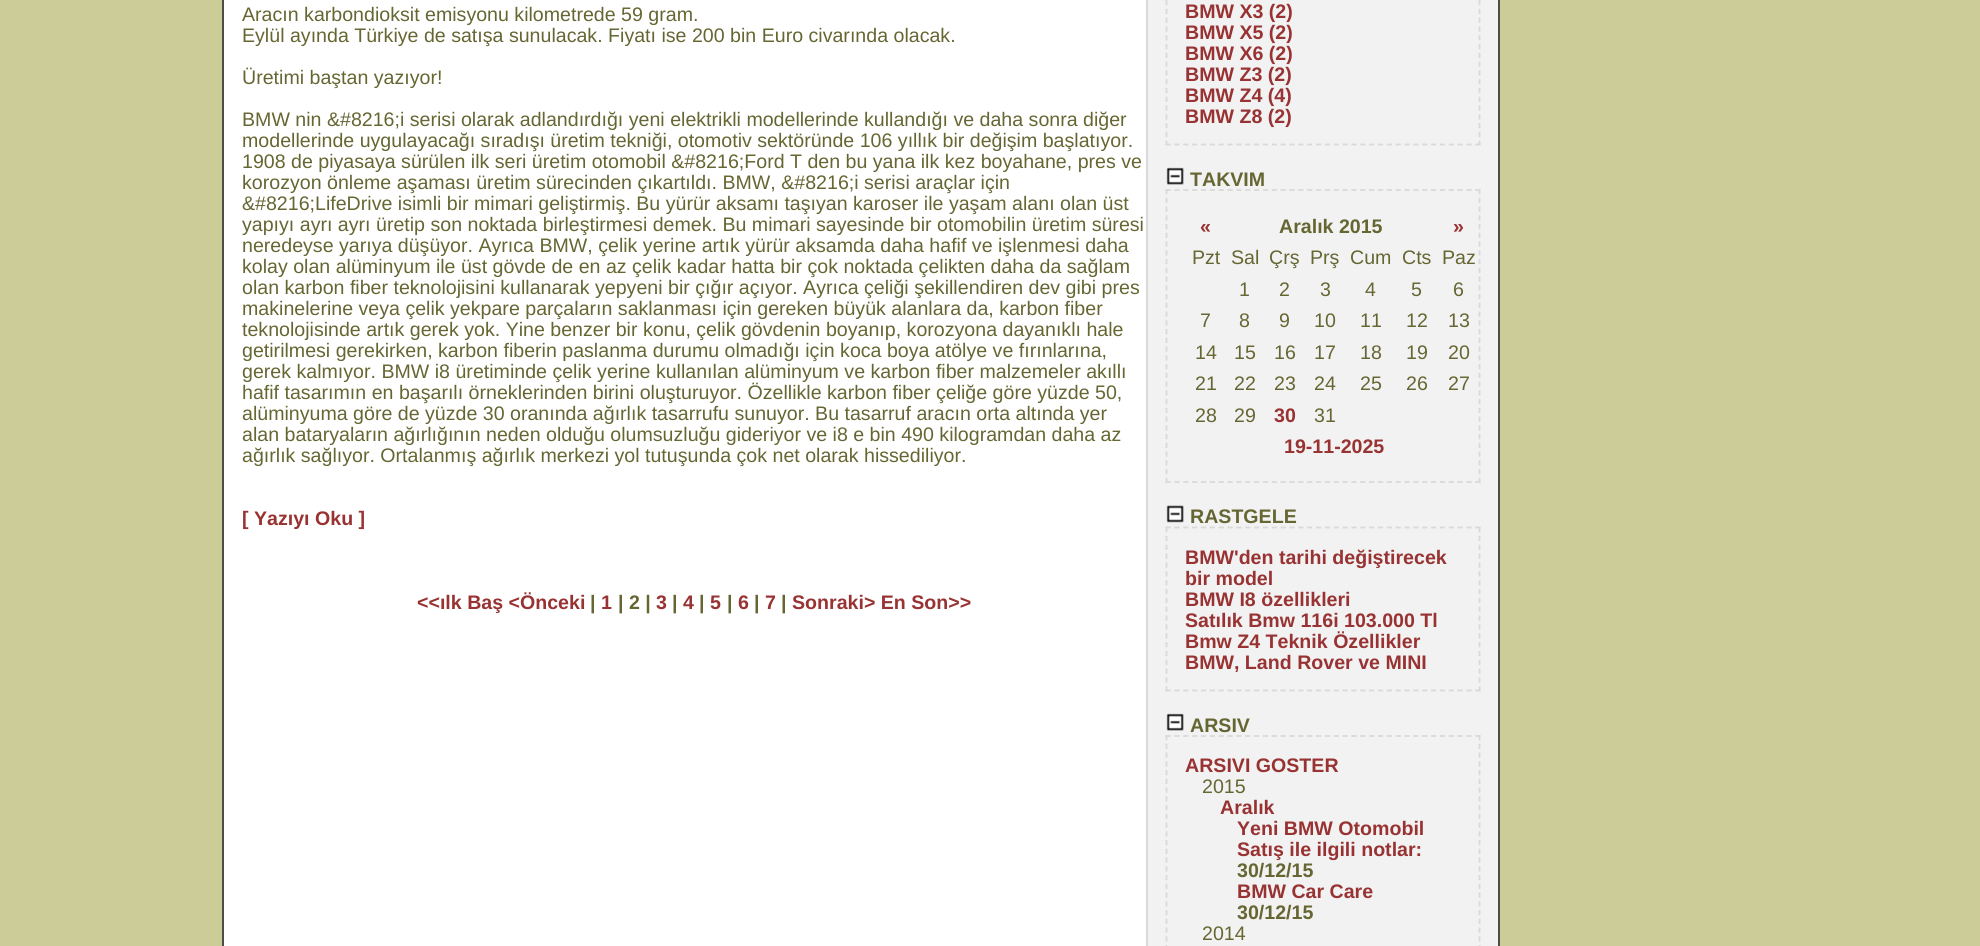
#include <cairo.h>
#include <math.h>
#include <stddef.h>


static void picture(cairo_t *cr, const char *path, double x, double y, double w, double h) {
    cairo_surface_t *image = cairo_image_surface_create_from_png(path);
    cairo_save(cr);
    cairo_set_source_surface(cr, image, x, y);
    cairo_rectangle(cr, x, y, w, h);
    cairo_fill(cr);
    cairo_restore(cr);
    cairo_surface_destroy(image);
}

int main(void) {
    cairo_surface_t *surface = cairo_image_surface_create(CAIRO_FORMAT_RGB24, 1980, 946);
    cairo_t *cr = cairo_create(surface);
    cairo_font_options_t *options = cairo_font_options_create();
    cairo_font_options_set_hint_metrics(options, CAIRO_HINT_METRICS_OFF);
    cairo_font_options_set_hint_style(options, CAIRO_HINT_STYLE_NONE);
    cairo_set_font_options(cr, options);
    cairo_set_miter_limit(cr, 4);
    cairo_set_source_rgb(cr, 0.8, 0.8, 0.6);
    cairo_paint(cr);
    cairo_set_source_rgb(cr, 1, 1, 1);
    cairo_rectangle(cr, 224, 0, 922, 946);
    cairo_fill(cr);
    cairo_rectangle(cr, 223, -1, 1276, 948);
    cairo_set_source_rgb(cr, 0.302, 0.302, 0.271);
    cairo_stroke(cr);
    cairo_select_font_face(cr, "Liberation Sans", CAIRO_FONT_SLANT_NORMAL, CAIRO_FONT_WEIGHT_NORMAL);
    cairo_set_font_size(cr, 19.6);
    cairo_set_source_rgb(cr, 0.4, 0.4, 0.2);
    cairo_move_to(cr, 242, 21);
    cairo_show_text(cr, "Aracın karbondioksit emisyonu kilometrede 59 gram.");
    cairo_move_to(cr, 242, 42);
    cairo_show_text(cr, "Eylül ayında Türkiye de satışa sunulacak. Fiyatı ise 200 bin Euro civarında olacak.");
    cairo_move_to(cr, 242, 84);
    cairo_show_text(cr, "Üretimi baştan yazıyor!");
    cairo_move_to(cr, 242, 126);
    cairo_show_text(cr, "BMW nin &#8216;i serisi olarak adlandırdığı yeni elektrikli modellerinde kullandığı ve daha sonra diğer");
    cairo_move_to(cr, 242, 147);
    cairo_show_text(cr, "modellerinde uygulayacağı sıradışı üretim tekniği, otomotiv sektöründe 106 yıllık bir değişim başlatıyor.");
    cairo_move_to(cr, 242, 168);
    cairo_show_text(cr, "1908 de piyasaya sürülen ilk seri üretim otomobil &#8216;Ford T den bu yana ilk kez boyahane, pres ve");
    cairo_move_to(cr, 242, 189);
    cairo_show_text(cr, "korozyon önleme aşaması üretim sürecinden çıkartıldı. BMW, &#8216;i serisi araçlar için");
    cairo_move_to(cr, 242, 210);
    cairo_show_text(cr, "&#8216;LifeDrive isimli bir mimari geliştirmiş. Bu yürür aksamı taşıyan karoser ile yaşam alanı olan üst");
    cairo_move_to(cr, 242, 231);
    cairo_show_text(cr, "yapıyı ayrı ayrı üretip son noktada birleştirmesi demek. Bu mimari sayesinde bir otomobilin üretim süresi");
    cairo_move_to(cr, 242, 252);
    cairo_show_text(cr, "neredeyse yarıya düşüyor. Ayrıca BMW, çelik yerine artık yürür aksamda daha hafif ve işlenmesi daha");
    cairo_move_to(cr, 242, 273);
    cairo_show_text(cr, "kolay olan alüminyum ile üst gövde de en az çelik kadar hatta bir çok noktada çelikten daha da sağlam");
    cairo_move_to(cr, 242, 294);
    cairo_show_text(cr, "olan karbon fiber teknolojisini kullanarak yepyeni bir çığır açıyor. Ayrıca çeliği şekillendiren dev gibi pres");
    cairo_move_to(cr, 242, 315);
    cairo_show_text(cr, "makinelerine veya çelik yekpare parçaların saklanması için gereken büyük alanlara da, karbon fiber");
    cairo_move_to(cr, 242, 336);
    cairo_show_text(cr, "teknolojisinde artık gerek yok. Yine benzer bir konu, çelik gövdenin boyanıp, korozyona dayanıklı hale");
    cairo_move_to(cr, 242, 357);
    cairo_show_text(cr, "getirilmesi gerekirken, karbon fiberin paslanma durumu olmadığı için koca boya atölye ve fırınlarına,");
    cairo_move_to(cr, 242, 378);
    cairo_show_text(cr, "gerek kalmıyor. BMW i8 üretiminde çelik yerine kullanılan alüminyum ve karbon fiber malzemeler akıllı");
    cairo_move_to(cr, 242, 399);
    cairo_show_text(cr, "hafif tasarımın en başarılı örneklerinden birini oluşturuyor. Özellikle karbon fiber çeliğe göre yüzde 50,");
    cairo_move_to(cr, 242, 420);
    cairo_show_text(cr, "alüminyuma göre de yüzde 30 oranında ağırlık tasarrufu sunuyor. Bu tasarruf aracın orta altında yer");
    cairo_move_to(cr, 242, 441);
    cairo_show_text(cr, "alan bataryaların ağırlığının neden olduğu olumsuzluğu gideriyor ve i8 e bin 490 kilogramdan daha az");
    cairo_move_to(cr, 242, 462);
    cairo_show_text(cr, "ağırlık sağlıyor. Ortalanmış ağırlık merkezi yol tutuşunda çok net olarak hissediliyor.");
    cairo_select_font_face(cr, "Liberation Sans", CAIRO_FONT_SLANT_NORMAL, CAIRO_FONT_WEIGHT_BOLD);
    cairo_set_source_rgb(cr, 0.6, 0.2, 0.2);
    cairo_move_to(cr, 242, 525);
    cairo_show_text(cr, "[ Yazıyı Oku ]");
    cairo_move_to(cr, 417, 609);
    cairo_show_text(cr, "<<ılk Baş <Önceki");
    cairo_set_source_rgb(cr, 0.4, 0.4, 0.2);
    cairo_move_to(cr, 590, 609);
    cairo_show_text(cr, "|");
    cairo_set_source_rgb(cr, 0.6, 0.2, 0.2);
    cairo_move_to(cr, 601, 609);
    cairo_show_text(cr, "1");
    cairo_set_source_rgb(cr, 0.4, 0.4, 0.2);
    cairo_move_to(cr, 618, 609);
    cairo_show_text(cr, "| 2 |");
    cairo_set_source_rgb(cr, 0.6, 0.2, 0.2);
    cairo_move_to(cr, 656, 609);
    cairo_show_text(cr, "3");
    cairo_set_source_rgb(cr, 0.4, 0.4, 0.2);
    cairo_move_to(cr, 672, 609);
    cairo_show_text(cr, "|");
    cairo_set_source_rgb(cr, 0.6, 0.2, 0.2);
    cairo_move_to(cr, 683, 609);
    cairo_show_text(cr, "4");
    cairo_set_source_rgb(cr, 0.4, 0.4, 0.2);
    cairo_move_to(cr, 699, 609);
    cairo_show_text(cr, "|");
    cairo_set_source_rgb(cr, 0.6, 0.2, 0.2);
    cairo_move_to(cr, 710, 609);
    cairo_show_text(cr, "5");
    cairo_set_source_rgb(cr, 0.4, 0.4, 0.2);
    cairo_move_to(cr, 727, 609);
    cairo_show_text(cr, "|");
    cairo_set_source_rgb(cr, 0.6, 0.2, 0.2);
    cairo_move_to(cr, 738, 609);
    cairo_show_text(cr, "6");
    cairo_set_source_rgb(cr, 0.4, 0.4, 0.2);
    cairo_move_to(cr, 754, 609);
    cairo_show_text(cr, "|");
    cairo_set_source_rgb(cr, 0.6, 0.2, 0.2);
    cairo_move_to(cr, 765, 609);
    cairo_show_text(cr, "7");
    cairo_set_source_rgb(cr, 0.4, 0.4, 0.2);
    cairo_move_to(cr, 781, 609);
    cairo_show_text(cr, "|");
    cairo_set_source_rgb(cr, 0.6, 0.2, 0.2);
    cairo_move_to(cr, 792, 609);
    cairo_show_text(cr, "Sonraki> En Son>>");
    cairo_set_source_rgb(cr, 0.949, 0.949, 0.949);
    cairo_rectangle(cr, 1148, 0, 350, 946);
    cairo_fill(cr);
    cairo_set_source_rgb(cr, 0.851, 0.851, 0.851);
    cairo_rectangle(cr, 1146, 0, 2, 946);
    cairo_fill(cr);
    cairo_new_path(cr);
    cairo_move_to(cr, 1479.5, -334);
    cairo_line_to(cr, 1479.5, 145);
    cairo_set_line_width(cr, 1.8);
    cairo_set_dash(cr, (double[]){5.25, 3.54}, 2, 0);
    cairo_stroke(cr);
    cairo_new_path(cr);
    cairo_move_to(cr, 1165.5, 144.5);
    cairo_line_to(cr, 1480.5, 144.5);
    cairo_set_dash(cr, (double[]){5.25, 3.6}, 2, 0);
    cairo_stroke(cr);
    cairo_new_path(cr);
    cairo_move_to(cr, 1166.5, -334);
    cairo_line_to(cr, 1166.5, 145);
    cairo_set_dash(cr, (double[]){5.25, 3.54}, 2, 0);
    cairo_stroke(cr);
    cairo_set_source_rgb(cr, 0.6, 0.2, 0.2);
    cairo_move_to(cr, 1185, 18);
    cairo_show_text(cr, "BMW X3 (2)");
    cairo_move_to(cr, 1185, 39);
    cairo_show_text(cr, "BMW X5 (2)");
    cairo_move_to(cr, 1185, 60);
    cairo_show_text(cr, "BMW X6 (2)");
    cairo_move_to(cr, 1185, 81);
    cairo_show_text(cr, "BMW Z3 (2)");
    cairo_move_to(cr, 1185, 102);
    cairo_show_text(cr, "BMW Z4 (4)");
    cairo_move_to(cr, 1185, 123);
    cairo_show_text(cr, "BMW Z8 (2)");
    picture(cr, "img1.png", 1166, 167, 18, 18);
    cairo_set_source_rgb(cr, 0.4, 0.4, 0.2);
    cairo_move_to(cr, 1190, 186);
    cairo_show_text(cr, "TAKVIM");
    cairo_new_path(cr);
    cairo_move_to(cr, 1165.5, 190);
    cairo_line_to(cr, 1480.5, 190);
    cairo_set_source_rgb(cr, 0.851, 0.851, 0.851);
    cairo_set_dash(cr, (double[]){5.25, 3.6}, 2, 0);
    cairo_stroke(cr);
    cairo_new_path(cr);
    cairo_move_to(cr, 1479.5, 189);
    cairo_line_to(cr, 1479.5, 483);
    cairo_set_dash(cr, (double[]){5.25, 3.5}, 2, 0);
    cairo_stroke(cr);
    cairo_new_path(cr);
    cairo_move_to(cr, 1165.5, 482);
    cairo_line_to(cr, 1480.5, 482);
    cairo_set_dash(cr, (double[]){5.25, 3.6}, 2, 0);
    cairo_stroke(cr);
    cairo_new_path(cr);
    cairo_move_to(cr, 1166.5, 189);
    cairo_line_to(cr, 1166.5, 483);
    cairo_set_dash(cr, (double[]){5.25, 3.5}, 2, 0);
    cairo_stroke(cr);
    cairo_set_source_rgb(cr, 0.6, 0.2, 0.2);
    cairo_move_to(cr, 1200, 233);
    cairo_show_text(cr, "«");
    cairo_set_source_rgb(cr, 0.4, 0.4, 0.2);
    cairo_move_to(cr, 1279, 233);
    cairo_show_text(cr, "Aralık 2015");
    cairo_set_source_rgb(cr, 0.6, 0.2, 0.2);
    cairo_move_to(cr, 1453, 233);
    cairo_show_text(cr, "»");
    cairo_select_font_face(cr, "Liberation Sans", CAIRO_FONT_SLANT_NORMAL, CAIRO_FONT_WEIGHT_NORMAL);
    cairo_set_source_rgb(cr, 0.4, 0.4, 0.2);
    cairo_move_to(cr, 1192, 264);
    cairo_show_text(cr, "Pzt");
    cairo_move_to(cr, 1231, 264);
    cairo_show_text(cr, "Sal");
    cairo_move_to(cr, 1269, 264);
    cairo_show_text(cr, "Çrş");
    cairo_move_to(cr, 1310, 264);
    cairo_show_text(cr, "Prş");
    cairo_move_to(cr, 1350, 264);
    cairo_show_text(cr, "Cum");
    cairo_move_to(cr, 1402, 264);
    cairo_show_text(cr, "Cts");
    cairo_move_to(cr, 1442, 264);
    cairo_show_text(cr, "Paz");
    cairo_move_to(cr, 1239, 296);
    cairo_show_text(cr, "1");
    cairo_move_to(cr, 1279, 296);
    cairo_show_text(cr, "2");
    cairo_move_to(cr, 1320, 296);
    cairo_show_text(cr, "3");
    cairo_move_to(cr, 1365, 296);
    cairo_show_text(cr, "4");
    cairo_move_to(cr, 1411, 296);
    cairo_show_text(cr, "5");
    cairo_move_to(cr, 1453, 296);
    cairo_show_text(cr, "6");
    cairo_move_to(cr, 1200, 327);
    cairo_show_text(cr, "7");
    cairo_move_to(cr, 1239, 327);
    cairo_show_text(cr, "8");
    cairo_move_to(cr, 1279, 327);
    cairo_show_text(cr, "9");
    cairo_move_to(cr, 1314, 327);
    cairo_show_text(cr, "10");
    cairo_move_to(cr, 1360, 327);
    cairo_show_text(cr, "11");
    cairo_move_to(cr, 1406, 327);
    cairo_show_text(cr, "12");
    cairo_move_to(cr, 1448, 327);
    cairo_show_text(cr, "13");
    cairo_move_to(cr, 1195, 359);
    cairo_show_text(cr, "14");
    cairo_move_to(cr, 1234, 359);
    cairo_show_text(cr, "15");
    cairo_move_to(cr, 1274, 359);
    cairo_show_text(cr, "16");
    cairo_move_to(cr, 1314, 359);
    cairo_show_text(cr, "17");
    cairo_move_to(cr, 1360, 359);
    cairo_show_text(cr, "18");
    cairo_move_to(cr, 1406, 359);
    cairo_show_text(cr, "19");
    cairo_move_to(cr, 1448, 359);
    cairo_show_text(cr, "20");
    cairo_move_to(cr, 1195, 390);
    cairo_show_text(cr, "21");
    cairo_move_to(cr, 1234, 390);
    cairo_show_text(cr, "22");
    cairo_move_to(cr, 1274, 390);
    cairo_show_text(cr, "23");
    cairo_move_to(cr, 1314, 390);
    cairo_show_text(cr, "24");
    cairo_move_to(cr, 1360, 390);
    cairo_show_text(cr, "25");
    cairo_move_to(cr, 1406, 390);
    cairo_show_text(cr, "26");
    cairo_move_to(cr, 1448, 390);
    cairo_show_text(cr, "27");
    cairo_move_to(cr, 1195, 422);
    cairo_show_text(cr, "28");
    cairo_move_to(cr, 1234, 422);
    cairo_show_text(cr, "29");
    cairo_select_font_face(cr, "Liberation Sans", CAIRO_FONT_SLANT_NORMAL, CAIRO_FONT_WEIGHT_BOLD);
    cairo_set_source_rgb(cr, 0.6, 0.2, 0.2);
    cairo_move_to(cr, 1274, 422);
    cairo_show_text(cr, "30");
    cairo_select_font_face(cr, "Liberation Sans", CAIRO_FONT_SLANT_NORMAL, CAIRO_FONT_WEIGHT_NORMAL);
    cairo_set_source_rgb(cr, 0.4, 0.4, 0.2);
    cairo_move_to(cr, 1314, 422);
    cairo_show_text(cr, "31");
    cairo_select_font_face(cr, "Liberation Sans", CAIRO_FONT_SLANT_NORMAL, CAIRO_FONT_WEIGHT_BOLD);
    cairo_set_source_rgb(cr, 0.6, 0.2, 0.2);
    cairo_move_to(cr, 1284, 453);
    cairo_show_text(cr, "19-11-2025");
    picture(cr, "img2.png", 1166, 505, 18, 18);
    cairo_set_source_rgb(cr, 0.4, 0.4, 0.2);
    cairo_move_to(cr, 1190, 523);
    cairo_show_text(cr, "RASTGELE");
    cairo_new_path(cr);
    cairo_move_to(cr, 1165.5, 527.5);
    cairo_line_to(cr, 1480.5, 527.5);
    cairo_set_source_rgb(cr, 0.851, 0.851, 0.851);
    cairo_set_dash(cr, (double[]){5.25, 3.6}, 2, 0);
    cairo_stroke(cr);
    cairo_new_path(cr);
    cairo_move_to(cr, 1479.5, 527);
    cairo_line_to(cr, 1479.5, 691);
    cairo_stroke(cr);
    cairo_new_path(cr);
    cairo_move_to(cr, 1165.5, 690.5);
    cairo_line_to(cr, 1480.5, 690.5);
    cairo_stroke(cr);
    cairo_new_path(cr);
    cairo_move_to(cr, 1166.5, 527);
    cairo_line_to(cr, 1166.5, 691);
    cairo_stroke(cr);
    cairo_set_source_rgb(cr, 0.6, 0.2, 0.2);
    cairo_move_to(cr, 1185, 564);
    cairo_show_text(cr, "BMW'den tarihi değiştirecek");
    cairo_move_to(cr, 1185, 585);
    cairo_show_text(cr, "bir model");
    cairo_move_to(cr, 1185, 606);
    cairo_show_text(cr, "BMW I8 özellikleri");
    cairo_move_to(cr, 1185, 627);
    cairo_show_text(cr, "Satılık Bmw 116i 103.000 Tl");
    cairo_move_to(cr, 1185, 648);
    cairo_show_text(cr, "Bmw Z4 Teknik Özellikler");
    cairo_move_to(cr, 1185, 669);
    cairo_show_text(cr, "BMW, Land Rover ve MINI");
    picture(cr, "img1.png", 1166, 713, 18, 18);
    cairo_set_source_rgb(cr, 0.4, 0.4, 0.2);
    cairo_move_to(cr, 1190, 732);
    cairo_show_text(cr, "ARSIV");
    cairo_new_path(cr);
    cairo_move_to(cr, 1165.5, 736);
    cairo_line_to(cr, 1480.5, 736);
    cairo_set_source_rgb(cr, 0.851, 0.851, 0.851);
    cairo_stroke(cr);
    cairo_new_path(cr);
    cairo_move_to(cr, 1479.5, 735);
    cairo_line_to(cr, 1479.5, 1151.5);
    cairo_set_dash(cr, (double[]){5.25, 3.5}, 2, 0);
    cairo_stroke(cr);
    cairo_new_path(cr);
    cairo_move_to(cr, 1166.5, 735);
    cairo_line_to(cr, 1166.5, 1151.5);
    cairo_stroke(cr);
    cairo_set_source_rgb(cr, 0.6, 0.2, 0.2);
    cairo_move_to(cr, 1185, 772);
    cairo_show_text(cr, "ARSIVI GOSTER");
    cairo_select_font_face(cr, "Liberation Sans", CAIRO_FONT_SLANT_NORMAL, CAIRO_FONT_WEIGHT_NORMAL);
    cairo_set_source_rgb(cr, 0.4, 0.4, 0.2);
    cairo_move_to(cr, 1202, 793);
    cairo_show_text(cr, "2015");
    cairo_select_font_face(cr, "Liberation Sans", CAIRO_FONT_SLANT_NORMAL, CAIRO_FONT_WEIGHT_BOLD);
    cairo_set_source_rgb(cr, 0.6, 0.2, 0.2);
    cairo_move_to(cr, 1220, 814);
    cairo_show_text(cr, "Aralık");
    cairo_move_to(cr, 1237, 835);
    cairo_show_text(cr, "Yeni BMW Otomobil");
    cairo_move_to(cr, 1237, 856);
    cairo_show_text(cr, "Satış ile ilgili notlar:");
    cairo_set_source_rgb(cr, 0.4, 0.4, 0.2);
    cairo_move_to(cr, 1237, 877);
    cairo_show_text(cr, "30/12/15");
    cairo_set_source_rgb(cr, 0.6, 0.2, 0.2);
    cairo_move_to(cr, 1237, 898);
    cairo_show_text(cr, "BMW Car Care");
    cairo_set_source_rgb(cr, 0.4, 0.4, 0.2);
    cairo_move_to(cr, 1237, 919);
    cairo_show_text(cr, "30/12/15");
    cairo_select_font_face(cr, "Liberation Sans", CAIRO_FONT_SLANT_NORMAL, CAIRO_FONT_WEIGHT_NORMAL);
    cairo_move_to(cr, 1202, 940);
    cairo_show_text(cr, "2014");
    cairo_surface_write_to_png(surface, "page.png");
    cairo_font_options_destroy(options);
    cairo_destroy(cr);
    cairo_surface_destroy(surface);
    return 0;
}
